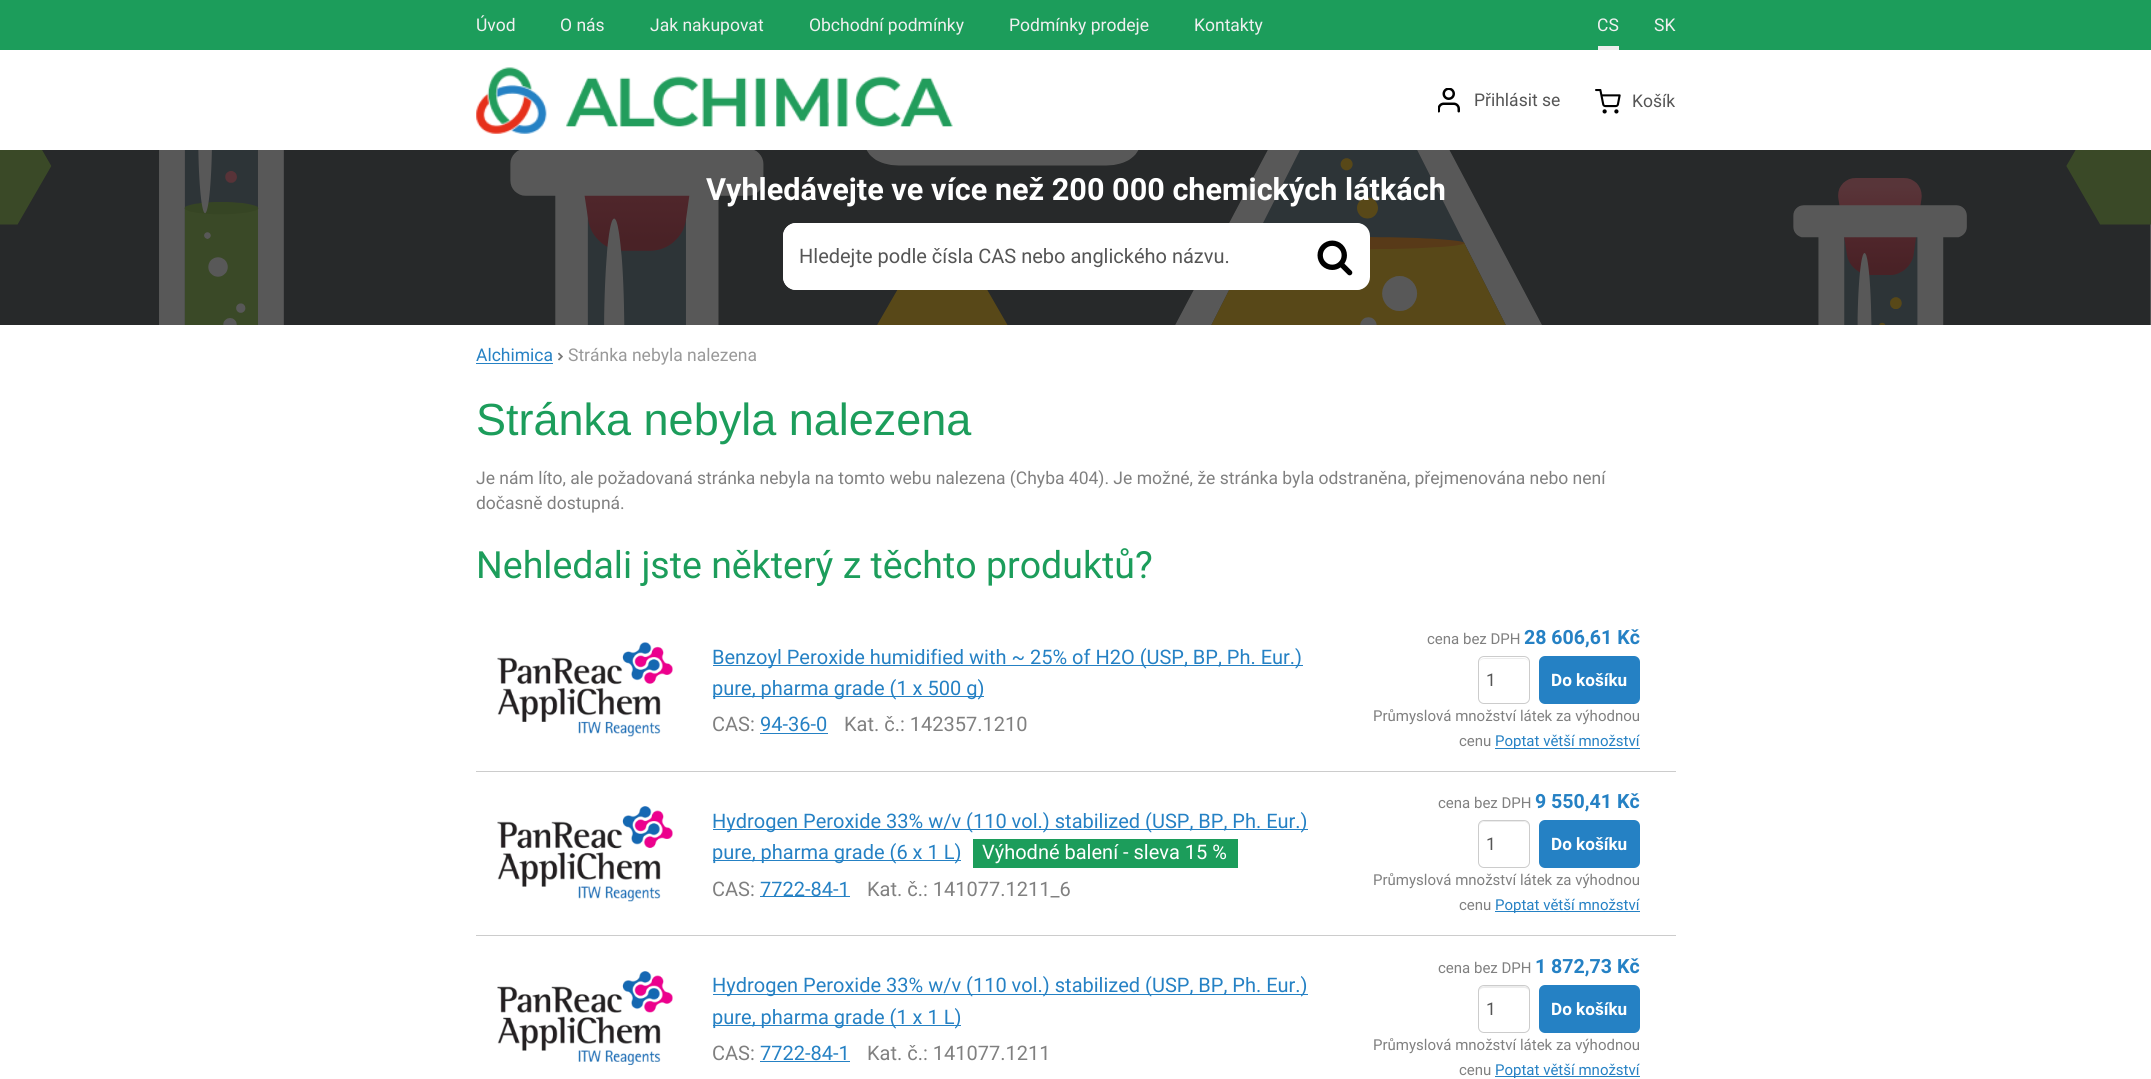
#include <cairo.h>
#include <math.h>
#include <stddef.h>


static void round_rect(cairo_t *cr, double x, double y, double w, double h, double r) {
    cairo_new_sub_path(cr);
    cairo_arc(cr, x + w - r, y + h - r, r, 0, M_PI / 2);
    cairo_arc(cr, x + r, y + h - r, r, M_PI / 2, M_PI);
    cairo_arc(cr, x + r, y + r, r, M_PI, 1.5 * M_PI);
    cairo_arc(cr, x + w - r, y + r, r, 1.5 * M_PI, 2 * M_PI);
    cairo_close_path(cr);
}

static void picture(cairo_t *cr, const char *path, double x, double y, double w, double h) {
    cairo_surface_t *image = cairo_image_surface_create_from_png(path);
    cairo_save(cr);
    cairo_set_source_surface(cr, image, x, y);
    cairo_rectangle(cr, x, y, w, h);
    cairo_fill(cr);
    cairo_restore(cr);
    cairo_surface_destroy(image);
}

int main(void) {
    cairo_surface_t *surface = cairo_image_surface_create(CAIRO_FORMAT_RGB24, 2151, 1079);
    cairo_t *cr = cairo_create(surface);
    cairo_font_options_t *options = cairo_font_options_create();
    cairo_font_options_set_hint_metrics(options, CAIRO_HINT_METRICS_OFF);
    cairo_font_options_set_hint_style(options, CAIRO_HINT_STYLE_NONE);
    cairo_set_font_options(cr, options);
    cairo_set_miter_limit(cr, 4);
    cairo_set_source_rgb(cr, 1, 1, 1);
    cairo_paint(cr);
    cairo_set_source_rgb(cr, 0.11, 0.616, 0.357);
    cairo_rectangle(cr, 0, 0, 2151, 50);
    cairo_fill(cr);
    cairo_select_font_face(cr, "Roboto", CAIRO_FONT_SLANT_NORMAL, CAIRO_FONT_WEIGHT_NORMAL);
    cairo_set_font_size(cr, 17.5);
    cairo_set_source_rgb(cr, 0.941, 0.941, 0.941);
    cairo_move_to(cr, 476, 31);
    cairo_show_text(cr, "Úvod");
    cairo_move_to(cr, 560, 31);
    cairo_show_text(cr, "O nás");
    cairo_move_to(cr, 650, 31);
    cairo_show_text(cr, "Jak nakupovat");
    cairo_move_to(cr, 809, 31);
    cairo_show_text(cr, "Obchodní podmínky");
    cairo_move_to(cr, 1009, 31);
    cairo_show_text(cr, "Podmínky prodeje");
    cairo_move_to(cr, 1194, 31);
    cairo_show_text(cr, "Kontakty");
    cairo_move_to(cr, 1597, 31);
    cairo_show_text(cr, "CS");
    cairo_set_source_rgb(cr, 0.933, 0.933, 0.933);
    cairo_rectangle(cr, 1598, 46, 21, 4);
    cairo_fill(cr);
    cairo_set_source_rgb(cr, 0.941, 0.941, 0.941);
    cairo_move_to(cr, 1654, 31);
    cairo_show_text(cr, "SK");
    picture(cr, "img1.png", 476, 67, 477, 67);
    picture(cr, "img2.png", 1438, 88, 22, 25);
    cairo_set_source_rgb(cr, 0.333, 0.333, 0.333);
    cairo_move_to(cr, 1474, 106);
    cairo_show_text(cr, "Přihlásit se");
    picture(cr, "img3.png", 1595, 89, 26, 25);
    cairo_move_to(cr, 1632, 107);
    cairo_show_text(cr, "Košík");
    picture(cr, "img5.png", 0, 150, 2151, 175);
    cairo_select_font_face(cr, "Roboto", CAIRO_FONT_SLANT_NORMAL, CAIRO_FONT_WEIGHT_BOLD);
    cairo_set_font_size(cr, 31.25);
    cairo_set_source_rgb(cr, 1, 1, 1);
    cairo_move_to(cr, 706, 200);
    cairo_show_text(cr, "Vyhledávejte ve více než 200 000 chemických látkách");
    round_rect(cr, 783, 223, 587, 67, 13);
    cairo_fill(cr);
    cairo_new_path(cr);
    cairo_move_to(cr, 796, 223);
    cairo_line_to(cr, 1303, 223);
    cairo_line_to(cr, 1303, 290);
    cairo_line_to(cr, 796, 290);
    cairo_curve_to(cr, 789, 290, 783, 284, 783, 277);
    cairo_line_to(cr, 783, 236);
    cairo_curve_to(cr, 783, 229, 789, 223, 796, 223);
    cairo_close_path(cr);
    cairo_fill(cr);
    cairo_new_path(cr);
    cairo_move_to(cr, 1301, 223);
    cairo_line_to(cr, 1356, 223);
    cairo_curve_to(cr, 1363, 223, 1369, 229, 1369, 236);
    cairo_line_to(cr, 1369, 277);
    cairo_curve_to(cr, 1369, 284, 1363, 290, 1356, 290);
    cairo_line_to(cr, 1301, 290);
    cairo_close_path(cr);
    cairo_fill(cr);
    picture(cr, "img4.png", 1317, 240, 36, 36);
    cairo_select_font_face(cr, "Roboto", CAIRO_FONT_SLANT_NORMAL, CAIRO_FONT_WEIGHT_NORMAL);
    cairo_set_font_size(cr, 20);
    cairo_set_source_rgb(cr, 0.333, 0.333, 0.333);
    cairo_move_to(cr, 799, 263);
    cairo_show_text(cr, "Hledejte podle čísla CAS nebo anglického názvu.");
    cairo_set_font_size(cr, 17.5);
    cairo_set_source_rgb(cr, 0.145, 0.506, 0.769);
    cairo_move_to(cr, 476, 361);
    cairo_show_text(cr, "Alchimica");
    cairo_rectangle(cr, 476, 363, 77, 1);
    cairo_fill(cr);
    picture(cr, "img6.png", 558, 352, 5, 9);
    cairo_set_source_rgb(cr, 0.6, 0.6, 0.6);
    cairo_move_to(cr, 568, 361);
    cairo_show_text(cr, "Stránka nebyla nalezena");
    cairo_select_font_face(cr, "Liberation Sans", CAIRO_FONT_SLANT_NORMAL, CAIRO_FONT_WEIGHT_NORMAL);
    cairo_set_font_size(cr, 45);
    cairo_set_source_rgb(cr, 0.11, 0.616, 0.357);
    cairo_move_to(cr, 476, 435);
    cairo_show_text(cr, "Stránka nebyla nalezena");
    cairo_select_font_face(cr, "Roboto", CAIRO_FONT_SLANT_NORMAL, CAIRO_FONT_WEIGHT_NORMAL);
    cairo_set_font_size(cr, 17.5);
    cairo_set_source_rgb(cr, 0.502, 0.502, 0.502);
    cairo_move_to(cr, 476, 484);
    cairo_show_text(cr, "Je nám líto, ale požadovaná stránka nebyla na tomto webu nalezena (Chyba 404). Je možné, že stránka byla odstraněna, přejmenována nebo není");
    cairo_move_to(cr, 476, 509);
    cairo_show_text(cr, "dočasně dostupná.");
    cairo_set_font_size(cr, 37.5);
    cairo_set_source_rgb(cr, 0.11, 0.616, 0.357);
    cairo_move_to(cr, 476, 578);
    cairo_show_text(cr, "Nehledali jste některý z těchto produktů?");
    picture(cr, "img7.png", 497, 642, 176, 95);
    cairo_set_source_rgb(cr, 0.145, 0.506, 0.769);
    cairo_rectangle(cr, 713, 665, 590, 1);
    cairo_fill(cr);
    cairo_set_font_size(cr, 20);
    cairo_move_to(cr, 712, 664);
    cairo_show_text(cr, "Benzoyl Peroxide humidified with ~ 25% of H2O (USP, BP, Ph. Eur.)");
    cairo_rectangle(cr, 713, 696, 271, 1);
    cairo_fill(cr);
    cairo_move_to(cr, 712, 695);
    cairo_show_text(cr, "pure, pharma grade (1 x 500 g)");
    cairo_set_source_rgb(cr, 0.502, 0.502, 0.502);
    cairo_move_to(cr, 712, 731);
    cairo_show_text(cr, "CAS:");
    cairo_set_source_rgb(cr, 0.145, 0.506, 0.769);
    cairo_move_to(cr, 760, 731);
    cairo_show_text(cr, "94-36-0");
    cairo_rectangle(cr, 760, 733, 68, 1);
    cairo_fill(cr);
    cairo_set_source_rgb(cr, 0.502, 0.502, 0.502);
    cairo_move_to(cr, 844, 731);
    cairo_show_text(cr, "Kat. č.: 142357.1210");
    cairo_set_font_size(cr, 15);
    cairo_move_to(cr, 1427, 644);
    cairo_show_text(cr, "cena bez DPH");
    cairo_select_font_face(cr, "Roboto", CAIRO_FONT_SLANT_NORMAL, CAIRO_FONT_WEIGHT_BOLD);
    cairo_set_font_size(cr, 20);
    cairo_set_source_rgb(cr, 0.145, 0.506, 0.769);
    cairo_move_to(cr, 1524, 644);
    cairo_show_text(cr, "28 606,61 Kč");
    cairo_set_source_rgb(cr, 0.925, 0.925, 0.925);
    cairo_new_path(cr);
    cairo_move_to(cr, 1484, 659);
    cairo_line_to(cr, 1524, 659);
    cairo_curve_to(cr, 1527, 659, 1529, 661, 1529, 664);
    cairo_curve_to(cr, 1529, 657, 1523, 658, 1517, 658);
    cairo_line_to(cr, 1491, 658);
    cairo_curve_to(cr, 1485, 658, 1479, 657, 1479, 664);
    cairo_curve_to(cr, 1479, 661, 1481, 659, 1484, 659);
    cairo_close_path(cr);
    cairo_fill(cr);
    round_rect(cr, 1478.5, 656.5, 51, 47, 5.5);
    cairo_set_source_rgb(cr, 0.8, 0.8, 0.8);
    cairo_set_line_width(cr, 1);
    cairo_stroke(cr);
    cairo_select_font_face(cr, "Roboto", CAIRO_FONT_SLANT_NORMAL, CAIRO_FONT_WEIGHT_NORMAL);
    cairo_set_font_size(cr, 17.5);
    cairo_set_source_rgb(cr, 0.333, 0.333, 0.333);
    cairo_move_to(cr, 1486, 686);
    cairo_show_text(cr, "1");
    cairo_set_source_rgb(cr, 0.145, 0.506, 0.769);
    round_rect(cr, 1539, 656, 101, 48, 6);
    cairo_fill(cr);
    cairo_select_font_face(cr, "Roboto", CAIRO_FONT_SLANT_NORMAL, CAIRO_FONT_WEIGHT_BOLD);
    cairo_set_source_rgb(cr, 1, 1, 1);
    cairo_move_to(cr, 1551, 686);
    cairo_show_text(cr, "Do košíku");
    cairo_select_font_face(cr, "Roboto", CAIRO_FONT_SLANT_NORMAL, CAIRO_FONT_WEIGHT_NORMAL);
    cairo_set_font_size(cr, 15);
    cairo_set_source_rgb(cr, 0.502, 0.502, 0.502);
    cairo_move_to(cr, 1373, 721);
    cairo_show_text(cr, "Průmyslová množství látek za výhodnou");
    cairo_move_to(cr, 1459, 746);
    cairo_show_text(cr, "cenu");
    cairo_set_source_rgb(cr, 0.145, 0.506, 0.769);
    cairo_rectangle(cr, 1495, 748, 145, 1);
    cairo_fill(cr);
    cairo_move_to(cr, 1495, 746);
    cairo_show_text(cr, "Poptat větší množství");
    cairo_set_source_rgb(cr, 0.8, 0.8, 0.8);
    cairo_rectangle(cr, 476, 771, 1200, 1);
    cairo_fill(cr);
    picture(cr, "img8.png", 497, 806, 176, 96);
    cairo_set_source_rgb(cr, 0.145, 0.506, 0.769);
    cairo_rectangle(cr, 713, 829, 595, 1);
    cairo_fill(cr);
    cairo_set_font_size(cr, 20);
    cairo_move_to(cr, 712, 828);
    cairo_show_text(cr, "Hydrogen Peroxide 33% w/v (110 vol.) stabilized (USP, BP, Ph. Eur.)");
    cairo_rectangle(cr, 713, 860, 248, 1);
    cairo_fill(cr);
    cairo_move_to(cr, 712, 859);
    cairo_show_text(cr, "pure, pharma grade (6 x 1 L)");
    cairo_set_source_rgb(cr, 0.11, 0.616, 0.357);
    cairo_rectangle(cr, 973, 839, 265, 29);
    cairo_fill(cr);
    cairo_set_source_rgb(cr, 1, 1, 1);
    cairo_move_to(cr, 982, 859);
    cairo_show_text(cr, "Výhodné balení - sleva 15 %");
    cairo_set_source_rgb(cr, 0.502, 0.502, 0.502);
    cairo_move_to(cr, 712, 896);
    cairo_show_text(cr, "CAS:");
    cairo_set_source_rgb(cr, 0.145, 0.506, 0.769);
    cairo_rectangle(cr, 760, 896, 90, 1);
    cairo_fill(cr);
    cairo_move_to(cr, 760, 896);
    cairo_show_text(cr, "7722-84-1");
    cairo_set_source_rgb(cr, 0.502, 0.502, 0.502);
    cairo_move_to(cr, 867, 896);
    cairo_show_text(cr, "Kat. č.: 141077.1211_6");
    cairo_set_font_size(cr, 15);
    cairo_move_to(cr, 1438, 808);
    cairo_show_text(cr, "cena bez DPH");
    cairo_select_font_face(cr, "Roboto", CAIRO_FONT_SLANT_NORMAL, CAIRO_FONT_WEIGHT_BOLD);
    cairo_set_font_size(cr, 20);
    cairo_set_source_rgb(cr, 0.145, 0.506, 0.769);
    cairo_move_to(cr, 1535, 808);
    cairo_show_text(cr, "9 550,41 Kč");
    cairo_set_source_rgb(cr, 0.925, 0.925, 0.925);
    cairo_new_path(cr);
    cairo_move_to(cr, 1484, 822);
    cairo_line_to(cr, 1524, 822);
    cairo_curve_to(cr, 1527, 822, 1529, 825, 1529, 828);
    cairo_curve_to(cr, 1529, 820, 1524, 821, 1517, 821);
    cairo_line_to(cr, 1491, 821);
    cairo_curve_to(cr, 1484, 821, 1479, 820, 1479, 828);
    cairo_curve_to(cr, 1479, 825, 1481, 822, 1484, 822);
    cairo_close_path(cr);
    cairo_fill(cr);
    round_rect(cr, 1478.5, 820.5, 51, 47, 5.5);
    cairo_set_source_rgb(cr, 0.8, 0.8, 0.8);
    cairo_stroke(cr);
    cairo_select_font_face(cr, "Roboto", CAIRO_FONT_SLANT_NORMAL, CAIRO_FONT_WEIGHT_NORMAL);
    cairo_set_font_size(cr, 17.5);
    cairo_set_source_rgb(cr, 0.333, 0.333, 0.333);
    cairo_move_to(cr, 1486, 850);
    cairo_show_text(cr, "1");
    cairo_set_source_rgb(cr, 0.145, 0.506, 0.769);
    round_rect(cr, 1539, 820, 101, 48, 6);
    cairo_fill(cr);
    cairo_select_font_face(cr, "Roboto", CAIRO_FONT_SLANT_NORMAL, CAIRO_FONT_WEIGHT_BOLD);
    cairo_set_source_rgb(cr, 1, 1, 1);
    cairo_move_to(cr, 1551, 850);
    cairo_show_text(cr, "Do košíku");
    cairo_select_font_face(cr, "Roboto", CAIRO_FONT_SLANT_NORMAL, CAIRO_FONT_WEIGHT_NORMAL);
    cairo_set_font_size(cr, 15);
    cairo_set_source_rgb(cr, 0.502, 0.502, 0.502);
    cairo_move_to(cr, 1373, 885);
    cairo_show_text(cr, "Průmyslová množství látek za výhodnou");
    cairo_move_to(cr, 1459, 910);
    cairo_show_text(cr, "cenu");
    cairo_set_source_rgb(cr, 0.145, 0.506, 0.769);
    cairo_rectangle(cr, 1495, 911, 145, 1);
    cairo_fill(cr);
    cairo_move_to(cr, 1495, 910);
    cairo_show_text(cr, "Poptat větší množství");
    cairo_set_source_rgb(cr, 0.8, 0.8, 0.8);
    cairo_rectangle(cr, 476, 935, 1200, 1);
    cairo_fill(cr);
    picture(cr, "img9.png", 497, 971, 176, 94);
    cairo_set_source_rgb(cr, 0.145, 0.506, 0.769);
    cairo_rectangle(cr, 713, 994, 595, 1);
    cairo_fill(cr);
    cairo_set_font_size(cr, 20);
    cairo_move_to(cr, 712, 992);
    cairo_show_text(cr, "Hydrogen Peroxide 33% w/v (110 vol.) stabilized (USP, BP, Ph. Eur.)");
    cairo_rectangle(cr, 713, 1025, 248, 1);
    cairo_fill(cr);
    cairo_move_to(cr, 712, 1024);
    cairo_show_text(cr, "pure, pharma grade (1 x 1 L)");
    cairo_set_source_rgb(cr, 0.502, 0.502, 0.502);
    cairo_move_to(cr, 712, 1060);
    cairo_show_text(cr, "CAS:");
    cairo_set_source_rgb(cr, 0.145, 0.506, 0.769);
    cairo_move_to(cr, 760, 1060);
    cairo_show_text(cr, "7722-84-1");
    cairo_rectangle(cr, 760, 1061, 90, 1);
    cairo_fill(cr);
    cairo_set_source_rgb(cr, 0.502, 0.502, 0.502);
    cairo_move_to(cr, 867, 1060);
    cairo_show_text(cr, "Kat. č.: 141077.1211");
    cairo_set_font_size(cr, 15);
    cairo_move_to(cr, 1438, 973);
    cairo_show_text(cr, "cena bez DPH");
    cairo_select_font_face(cr, "Roboto", CAIRO_FONT_SLANT_NORMAL, CAIRO_FONT_WEIGHT_BOLD);
    cairo_set_font_size(cr, 20);
    cairo_set_source_rgb(cr, 0.145, 0.506, 0.769);
    cairo_move_to(cr, 1535, 973);
    cairo_show_text(cr, "1 872,73 Kč");
    cairo_set_source_rgb(cr, 0.925, 0.925, 0.925);
    cairo_new_path(cr);
    cairo_move_to(cr, 1484, 988);
    cairo_line_to(cr, 1524, 988);
    cairo_curve_to(cr, 1527, 988, 1529, 990, 1529, 992);
    cairo_curve_to(cr, 1529, 985, 1523, 986, 1517, 986);
    cairo_line_to(cr, 1491, 986);
    cairo_curve_to(cr, 1485, 986, 1479, 985, 1479, 992);
    cairo_curve_to(cr, 1479, 990, 1481, 988, 1484, 988);
    cairo_close_path(cr);
    cairo_fill(cr);
    round_rect(cr, 1478.5, 985.5, 51, 47, 5.5);
    cairo_set_source_rgb(cr, 0.8, 0.8, 0.8);
    cairo_stroke(cr);
    cairo_select_font_face(cr, "Roboto", CAIRO_FONT_SLANT_NORMAL, CAIRO_FONT_WEIGHT_NORMAL);
    cairo_set_font_size(cr, 17.5);
    cairo_set_source_rgb(cr, 0.333, 0.333, 0.333);
    cairo_move_to(cr, 1486, 1015);
    cairo_show_text(cr, "1");
    cairo_set_source_rgb(cr, 0.145, 0.506, 0.769);
    round_rect(cr, 1539, 985, 101, 48, 6);
    cairo_fill(cr);
    cairo_select_font_face(cr, "Roboto", CAIRO_FONT_SLANT_NORMAL, CAIRO_FONT_WEIGHT_BOLD);
    cairo_set_source_rgb(cr, 1, 1, 1);
    cairo_move_to(cr, 1551, 1015);
    cairo_show_text(cr, "Do košíku");
    cairo_select_font_face(cr, "Roboto", CAIRO_FONT_SLANT_NORMAL, CAIRO_FONT_WEIGHT_NORMAL);
    cairo_set_font_size(cr, 15);
    cairo_set_source_rgb(cr, 0.502, 0.502, 0.502);
    cairo_move_to(cr, 1373, 1050);
    cairo_show_text(cr, "Průmyslová množství látek za výhodnou");
    cairo_move_to(cr, 1459, 1075);
    cairo_show_text(cr, "cenu");
    cairo_set_source_rgb(cr, 0.145, 0.506, 0.769);
    cairo_rectangle(cr, 1495, 1076, 145, 1);
    cairo_fill(cr);
    cairo_move_to(cr, 1495, 1075);
    cairo_show_text(cr, "Poptat větší množství");
    cairo_surface_write_to_png(surface, "page.png");
    cairo_font_options_destroy(options);
    cairo_destroy(cr);
    cairo_surface_destroy(surface);
    return 0;
}
